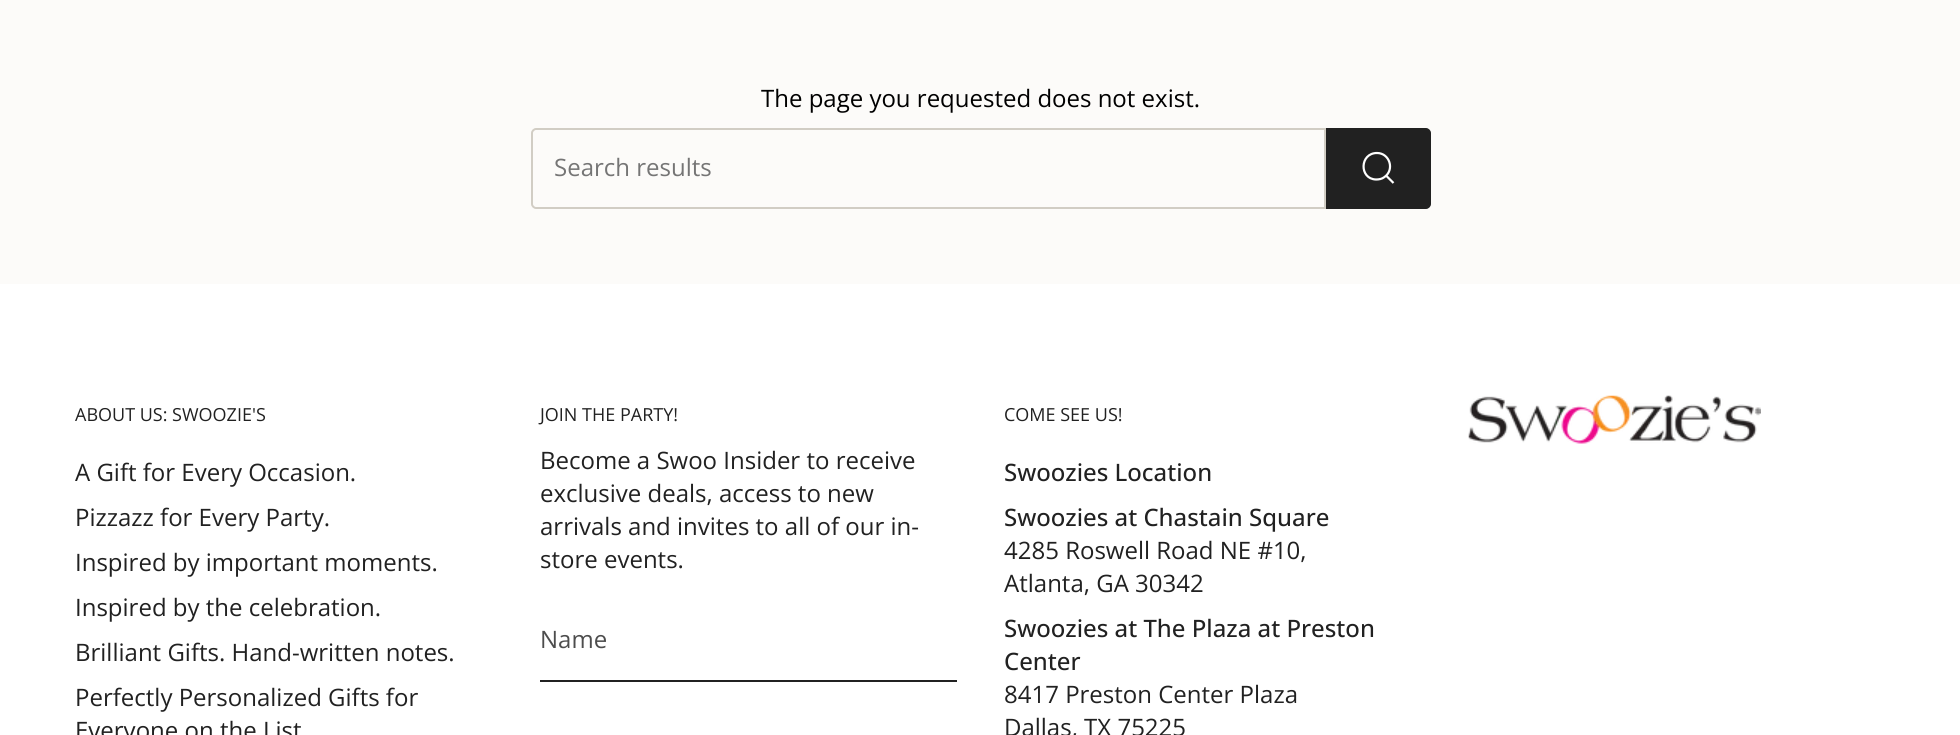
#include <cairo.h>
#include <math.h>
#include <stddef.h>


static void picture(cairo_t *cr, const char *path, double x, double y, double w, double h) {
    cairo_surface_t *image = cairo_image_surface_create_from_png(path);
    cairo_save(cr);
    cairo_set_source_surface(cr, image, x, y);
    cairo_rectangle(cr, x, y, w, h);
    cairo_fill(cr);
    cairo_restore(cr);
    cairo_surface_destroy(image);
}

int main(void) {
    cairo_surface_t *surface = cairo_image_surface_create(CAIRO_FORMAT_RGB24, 1960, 735);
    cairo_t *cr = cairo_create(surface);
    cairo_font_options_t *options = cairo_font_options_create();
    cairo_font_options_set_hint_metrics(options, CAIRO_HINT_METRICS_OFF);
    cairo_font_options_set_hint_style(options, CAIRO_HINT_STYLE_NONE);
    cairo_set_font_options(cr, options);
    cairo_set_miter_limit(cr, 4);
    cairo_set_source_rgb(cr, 0.988, 0.984, 0.976);
    cairo_paint(cr);
    cairo_select_font_face(cr, "Open Sans", CAIRO_FONT_SLANT_NORMAL, CAIRO_FONT_WEIGHT_NORMAL);
    cairo_set_font_size(cr, 24);
    cairo_set_source_rgb(cr, 0, 0, 0);
    cairo_move_to(cr, 761, 107);
    cairo_show_text(cr, "The page you requested does not exist.");
    cairo_new_path(cr);
    cairo_move_to(cr, 536, 129);
    cairo_line_to(cr, 1325, 129);
    cairo_line_to(cr, 1325, 208);
    cairo_line_to(cr, 536, 208);
    cairo_curve_to(cr, 534, 208, 532, 206, 532, 204);
    cairo_line_to(cr, 532, 133);
    cairo_curve_to(cr, 532, 131, 534, 129, 536, 129);
    cairo_close_path(cr);
    cairo_set_source_rgb(cr, 0.82, 0.804, 0.769);
    cairo_stroke(cr);
    cairo_set_source_rgb(cr, 0.459, 0.459, 0.459);
    cairo_move_to(cr, 554, 176);
    cairo_show_text(cr, "Search results");
    cairo_set_source_rgb(cr, 0.129, 0.129, 0.129);
    cairo_new_path(cr);
    cairo_move_to(cr, 1327, 129);
    cairo_line_to(cr, 1426, 129);
    cairo_curve_to(cr, 1428, 129, 1430, 131, 1430, 133);
    cairo_line_to(cr, 1430, 204);
    cairo_curve_to(cr, 1430, 206, 1428, 208, 1426, 208);
    cairo_line_to(cr, 1327, 208);
    cairo_close_path(cr);
    cairo_fill_preserve(cr);
    cairo_stroke(cr);
    cairo_new_path(cr);
    cairo_move_to(cr, 1377, 153);
    cairo_curve_to(cr, 1389.5, 153, 1395, 169.5, 1384.5, 177);
    cairo_curve_to(cr, 1382, 179, 1379, 179.5, 1376, 179.5);
    cairo_curve_to(cr, 1359, 179, 1359.5, 153, 1377, 153);
    cairo_close_path(cr);
    cairo_move_to(cr, 1386, 175.5);
    cairo_line_to(cr, 1393.5, 183);
    cairo_set_source_rgb(cr, 1, 1, 1);
    cairo_set_line_width(cr, 2.2);
    cairo_stroke(cr);
    cairo_rectangle(cr, 0, 284, 1960, 451);
    cairo_fill(cr);
    cairo_set_font_size(cr, 18);
    cairo_set_source_rgb(cr, 0.129, 0.129, 0.129);
    cairo_move_to(cr, 75, 421);
    cairo_show_text(cr, "ABOUT US: SWOOZIE'S");
    cairo_set_font_size(cr, 24);
    cairo_move_to(cr, 75, 481);
    cairo_show_text(cr, "A Gift for Every Occasion.");
    cairo_move_to(cr, 75, 526);
    cairo_show_text(cr, "Pizzazz for Every Party.");
    cairo_move_to(cr, 75, 571);
    cairo_show_text(cr, "Inspired by important moments.");
    cairo_move_to(cr, 75, 616);
    cairo_show_text(cr, "Inspired by the celebration.");
    cairo_move_to(cr, 75, 661);
    cairo_show_text(cr, "Brilliant Gifts. Hand-written notes.");
    cairo_move_to(cr, 75, 706);
    cairo_show_text(cr, "Perfectly Personalized Gifts for");
    cairo_move_to(cr, 75, 739);
    cairo_show_text(cr, "Everyone on the List");
    cairo_set_font_size(cr, 18);
    cairo_move_to(cr, 540, 421);
    cairo_show_text(cr, "JOIN THE PARTY!");
    cairo_set_font_size(cr, 24);
    cairo_move_to(cr, 540, 469);
    cairo_show_text(cr, "Become a Swoo Insider to receive");
    cairo_move_to(cr, 540, 502);
    cairo_show_text(cr, "exclusive deals, access to new");
    cairo_move_to(cr, 540, 535);
    cairo_show_text(cr, "arrivals and invites to all of our in-");
    cairo_move_to(cr, 540, 568);
    cairo_show_text(cr, "store events.");
    cairo_rectangle(cr, 540, 680, 417, 2);
    cairo_fill(cr);
    cairo_set_source_rgb(cr, 0.302, 0.302, 0.302);
    cairo_move_to(cr, 540, 648);
    cairo_show_text(cr, "Name");
    cairo_set_font_size(cr, 18);
    cairo_set_source_rgb(cr, 0.129, 0.129, 0.129);
    cairo_move_to(cr, 1004, 421);
    cairo_show_text(cr, "COME SEE US!");
    cairo_select_font_face(cr, "Open Sans Medium", CAIRO_FONT_SLANT_NORMAL, CAIRO_FONT_WEIGHT_NORMAL);
    cairo_set_font_size(cr, 24);
    cairo_move_to(cr, 1004, 481);
    cairo_show_text(cr, "Swoozies Location");
    cairo_move_to(cr, 1004, 526);
    cairo_show_text(cr, "Swoozies at Chastain Square");
    cairo_select_font_face(cr, "Open Sans", CAIRO_FONT_SLANT_NORMAL, CAIRO_FONT_WEIGHT_NORMAL);
    cairo_move_to(cr, 1004, 559);
    cairo_show_text(cr, "4285 Roswell Road NE #10,");
    cairo_move_to(cr, 1004, 592);
    cairo_show_text(cr, "Atlanta, GA 30342");
    cairo_select_font_face(cr, "Open Sans Medium", CAIRO_FONT_SLANT_NORMAL, CAIRO_FONT_WEIGHT_NORMAL);
    cairo_move_to(cr, 1004, 637);
    cairo_show_text(cr, "Swoozies at The Plaza at Preston");
    cairo_move_to(cr, 1004, 670);
    cairo_show_text(cr, "Center");
    cairo_select_font_face(cr, "Open Sans", CAIRO_FONT_SLANT_NORMAL, CAIRO_FONT_WEIGHT_NORMAL);
    cairo_move_to(cr, 1004, 703);
    cairo_show_text(cr, "8417 Preston Center Plaza");
    cairo_move_to(cr, 1004, 736);
    cairo_show_text(cr, "Dallas, TX 75225");
    picture(cr, "img1.png", 1468, 395, 293, 49);
    cairo_surface_write_to_png(surface, "page.png");
    cairo_font_options_destroy(options);
    cairo_destroy(cr);
    cairo_surface_destroy(surface);
    return 0;
}
